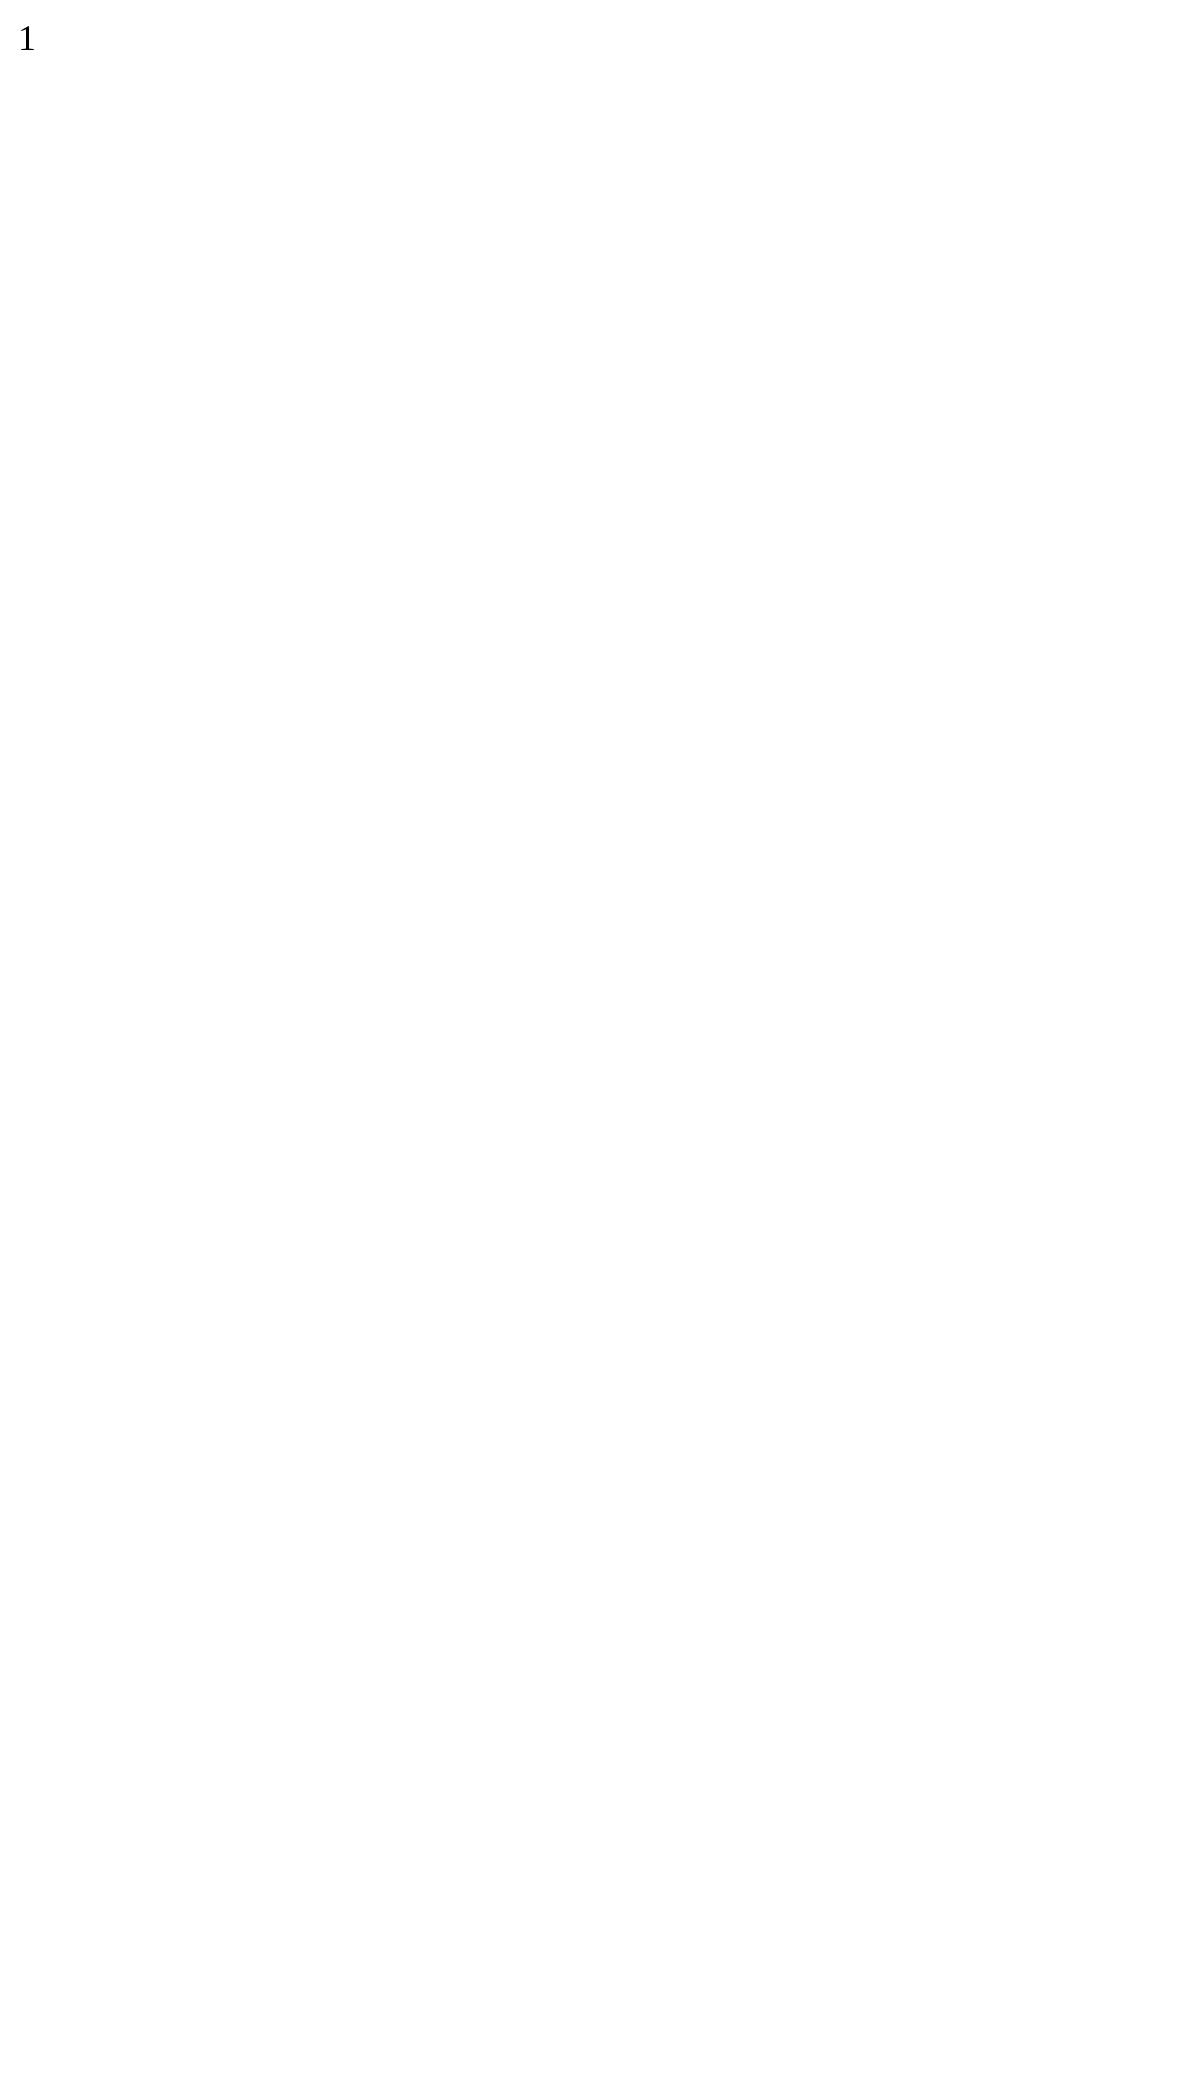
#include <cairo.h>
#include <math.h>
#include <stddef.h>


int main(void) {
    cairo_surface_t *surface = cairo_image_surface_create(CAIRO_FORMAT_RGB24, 1188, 2078);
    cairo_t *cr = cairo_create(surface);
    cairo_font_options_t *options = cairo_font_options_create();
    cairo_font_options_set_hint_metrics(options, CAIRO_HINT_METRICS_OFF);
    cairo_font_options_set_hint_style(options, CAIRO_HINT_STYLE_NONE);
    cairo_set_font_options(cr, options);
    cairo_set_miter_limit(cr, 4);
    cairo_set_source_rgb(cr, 1, 1, 1);
    cairo_paint(cr);
    cairo_select_font_face(cr, "Liberation Serif", CAIRO_FONT_SLANT_NORMAL, CAIRO_FONT_WEIGHT_NORMAL);
    cairo_set_font_size(cr, 36);
    cairo_set_source_rgb(cr, 0, 0, 0);
    cairo_move_to(cr, 18, 50);
    cairo_show_text(cr, "1");
    cairo_surface_write_to_png(surface, "page.png");
    cairo_font_options_destroy(options);
    cairo_destroy(cr);
    cairo_surface_destroy(surface);
    return 0;
}
